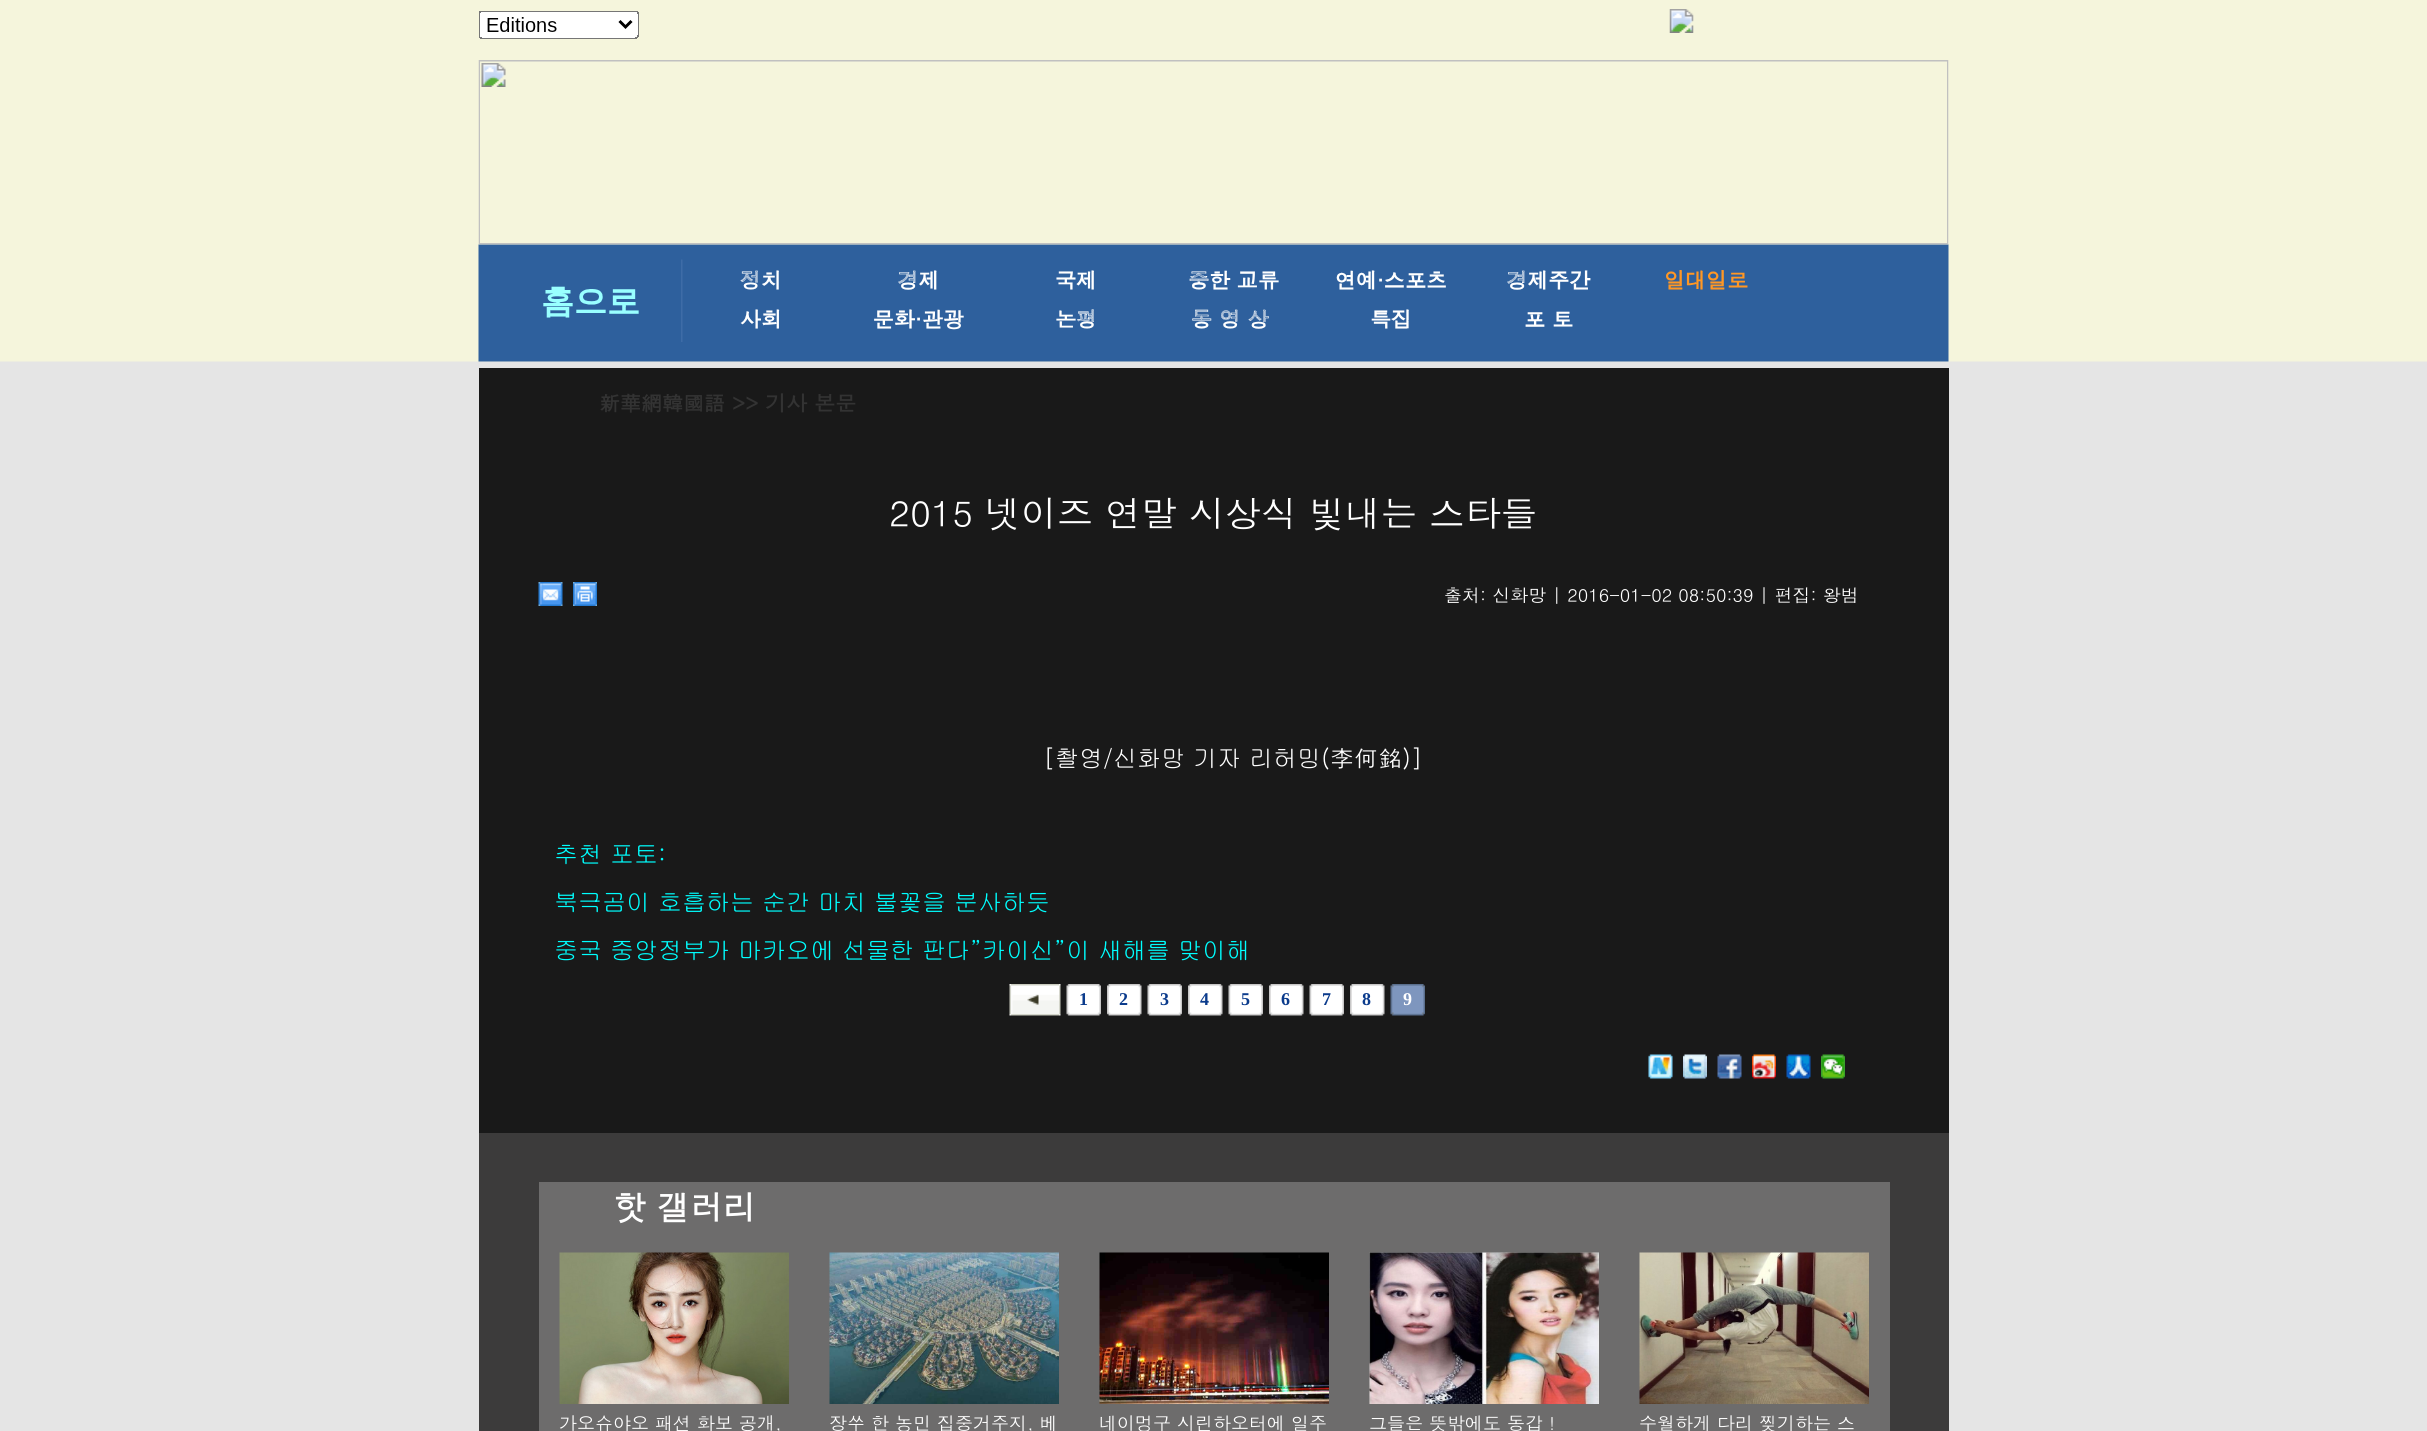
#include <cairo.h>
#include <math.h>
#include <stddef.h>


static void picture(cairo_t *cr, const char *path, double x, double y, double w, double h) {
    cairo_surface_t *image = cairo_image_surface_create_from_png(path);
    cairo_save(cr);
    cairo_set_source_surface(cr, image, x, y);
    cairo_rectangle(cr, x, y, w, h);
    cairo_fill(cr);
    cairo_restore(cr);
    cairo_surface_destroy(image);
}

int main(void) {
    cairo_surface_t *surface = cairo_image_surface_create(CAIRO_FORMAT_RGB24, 2427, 1431);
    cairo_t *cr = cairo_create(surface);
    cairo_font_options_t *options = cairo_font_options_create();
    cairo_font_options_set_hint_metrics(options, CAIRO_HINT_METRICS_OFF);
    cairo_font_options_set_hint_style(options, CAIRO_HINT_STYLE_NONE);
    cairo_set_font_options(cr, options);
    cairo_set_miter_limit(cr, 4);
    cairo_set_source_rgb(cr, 0.898, 0.898, 0.898);
    cairo_paint(cr);
    picture(cr, "img1.png", 0, 0, 2427, 362);
    cairo_set_source_rgb(cr, 0.098, 0.098, 0.098);
    cairo_rectangle(cr, 479, 368, 1470, 765);
    cairo_fill(cr);
    cairo_select_font_face(cr, "Dotum", CAIRO_FONT_SLANT_NORMAL, CAIRO_FONT_WEIGHT_BOLD);
    cairo_set_font_size(cr, 21);
    cairo_set_source_rgb(cr, 0.2, 0.2, 0.2);
    cairo_move_to(cr, 599, 411);
    cairo_show_text(cr, "新華網韓國語 >> 기사 본문");
    cairo_select_font_face(cr, "Dotum", CAIRO_FONT_SLANT_NORMAL, CAIRO_FONT_WEIGHT_NORMAL);
    cairo_set_font_size(cr, 36);
    cairo_set_source_rgb(cr, 1, 1, 1);
    cairo_move_to(cr, 889, 527);
    cairo_show_text(cr, "2015 넷이즈 연말 시상식 빛내는 스타들");
    picture(cr, "img2.png", 538, 582, 25, 24);
    picture(cr, "img3.png", 573, 582, 24, 24);
    cairo_set_font_size(cr, 18);
    cairo_move_to(cr, 1444, 602);
    cairo_show_text(cr, "출처: 신화망 | 2016-01-02 08:50:39 | 편집: 왕범");
    cairo_select_font_face(cr, "Gulim", CAIRO_FONT_SLANT_NORMAL, CAIRO_FONT_WEIGHT_NORMAL);
    cairo_set_font_size(cr, 24);
    cairo_move_to(cr, 1043, 767);
    cairo_show_text(cr, "[촬영/신화망 기자 리허밍(李何銘)]");
    cairo_set_source_rgb(cr, 0, 1, 1);
    cairo_move_to(cr, 554, 863);
    cairo_show_text(cr, "추천 포토:");
    cairo_move_to(cr, 554, 911);
    cairo_show_text(cr, "북극곰이 호흡하는 순간 마치 불꽃을 분사하듯");
    cairo_move_to(cr, 554, 959);
    cairo_show_text(cr, "중국 중앙정부가 마카오에 선물한 판다”카이신”이 새해를 맞이해");
    picture(cr, "img4.png", 1009, 984, 52, 32);
    picture(cr, "img5.png", 1066, 984, 35, 32);
    cairo_select_font_face(cr, "Liberation Serif", CAIRO_FONT_SLANT_NORMAL, CAIRO_FONT_WEIGHT_BOLD);
    cairo_set_font_size(cr, 18);
    cairo_set_source_rgb(cr, 0.043, 0.231, 0.549);
    cairo_move_to(cr, 1079, 1005);
    cairo_show_text(cr, "1");
    picture(cr, "img6.png", 1107, 984, 35, 32);
    cairo_move_to(cr, 1119, 1005);
    cairo_show_text(cr, "2");
    picture(cr, "img7.png", 1147, 984, 35, 32);
    cairo_move_to(cr, 1160, 1005);
    cairo_show_text(cr, "3");
    picture(cr, "img6.png", 1188, 984, 35, 32);
    cairo_move_to(cr, 1200, 1005);
    cairo_show_text(cr, "4");
    picture(cr, "img5.png", 1228, 984, 35, 32);
    cairo_move_to(cr, 1241, 1005);
    cairo_show_text(cr, "5");
    picture(cr, "img8.png", 1269, 984, 35, 32);
    cairo_move_to(cr, 1281, 1005);
    cairo_show_text(cr, "6");
    picture(cr, "img9.png", 1309, 984, 35, 32);
    cairo_move_to(cr, 1322, 1005);
    cairo_show_text(cr, "7");
    picture(cr, "img6.png", 1350, 984, 35, 32);
    cairo_move_to(cr, 1362, 1005);
    cairo_show_text(cr, "8");
    picture(cr, "img10.png", 1390, 984, 35, 32);
    cairo_set_source_rgb(cr, 1, 1, 1);
    cairo_move_to(cr, 1403, 1005);
    cairo_show_text(cr, "9");
    picture(cr, "img11.png", 1648, 1054, 25, 25);
    picture(cr, "img12.png", 1683, 1054, 24, 25);
    picture(cr, "img13.png", 1717, 1054, 25, 25);
    picture(cr, "img14.png", 1752, 1054, 24, 25);
    picture(cr, "img15.png", 1786, 1054, 25, 25);
    picture(cr, "img16.png", 1821, 1054, 24, 25);
    cairo_set_source_rgb(cr, 0.235, 0.231, 0.231);
    cairo_rectangle(cr, 479, 1133, 1470, 298);
    cairo_fill(cr);
    cairo_set_source_rgb(cr, 0.427, 0.424, 0.424);
    cairo_rectangle(cr, 539, 1182, 1351, 249);
    cairo_fill(cr);
    cairo_select_font_face(cr, "Dotum", CAIRO_FONT_SLANT_NORMAL, CAIRO_FONT_WEIGHT_BOLD);
    cairo_set_font_size(cr, 33);
    cairo_set_source_rgb(cr, 1, 1, 1);
    cairo_move_to(cr, 613, 1220);
    cairo_show_text(cr, "핫 갤러리");
    picture(cr, "img17.png", 559, 1252, 230, 152);
    cairo_select_font_face(cr, "Dotum", CAIRO_FONT_SLANT_NORMAL, CAIRO_FONT_WEIGHT_NORMAL);
    cairo_set_font_size(cr, 18);
    cairo_move_to(cr, 559, 1430);
    cairo_show_text(cr, "가오슈야오 패션 화보 공개,");
    picture(cr, "img18.png", 829, 1252, 230, 152);
    cairo_move_to(cr, 829, 1430);
    cairo_show_text(cr, "장쑤 한 농민 집중거주지, 베");
    picture(cr, "img19.png", 1099, 1252, 230, 152);
    cairo_move_to(cr, 1099, 1430);
    cairo_show_text(cr, "네이멍구 시린하오터에 일주");
    picture(cr, "img20.png", 1369, 1252, 230, 152);
    cairo_move_to(cr, 1369, 1430);
    cairo_show_text(cr, "그들은 뜻밖에도 동갑 !");
    picture(cr, "img21.png", 1639, 1252, 230, 152);
    cairo_move_to(cr, 1639, 1430);
    cairo_show_text(cr, "수월하게 다리 찢기하는 스");
    cairo_surface_write_to_png(surface, "page.png");
    cairo_font_options_destroy(options);
    cairo_destroy(cr);
    cairo_surface_destroy(surface);
    return 0;
}
